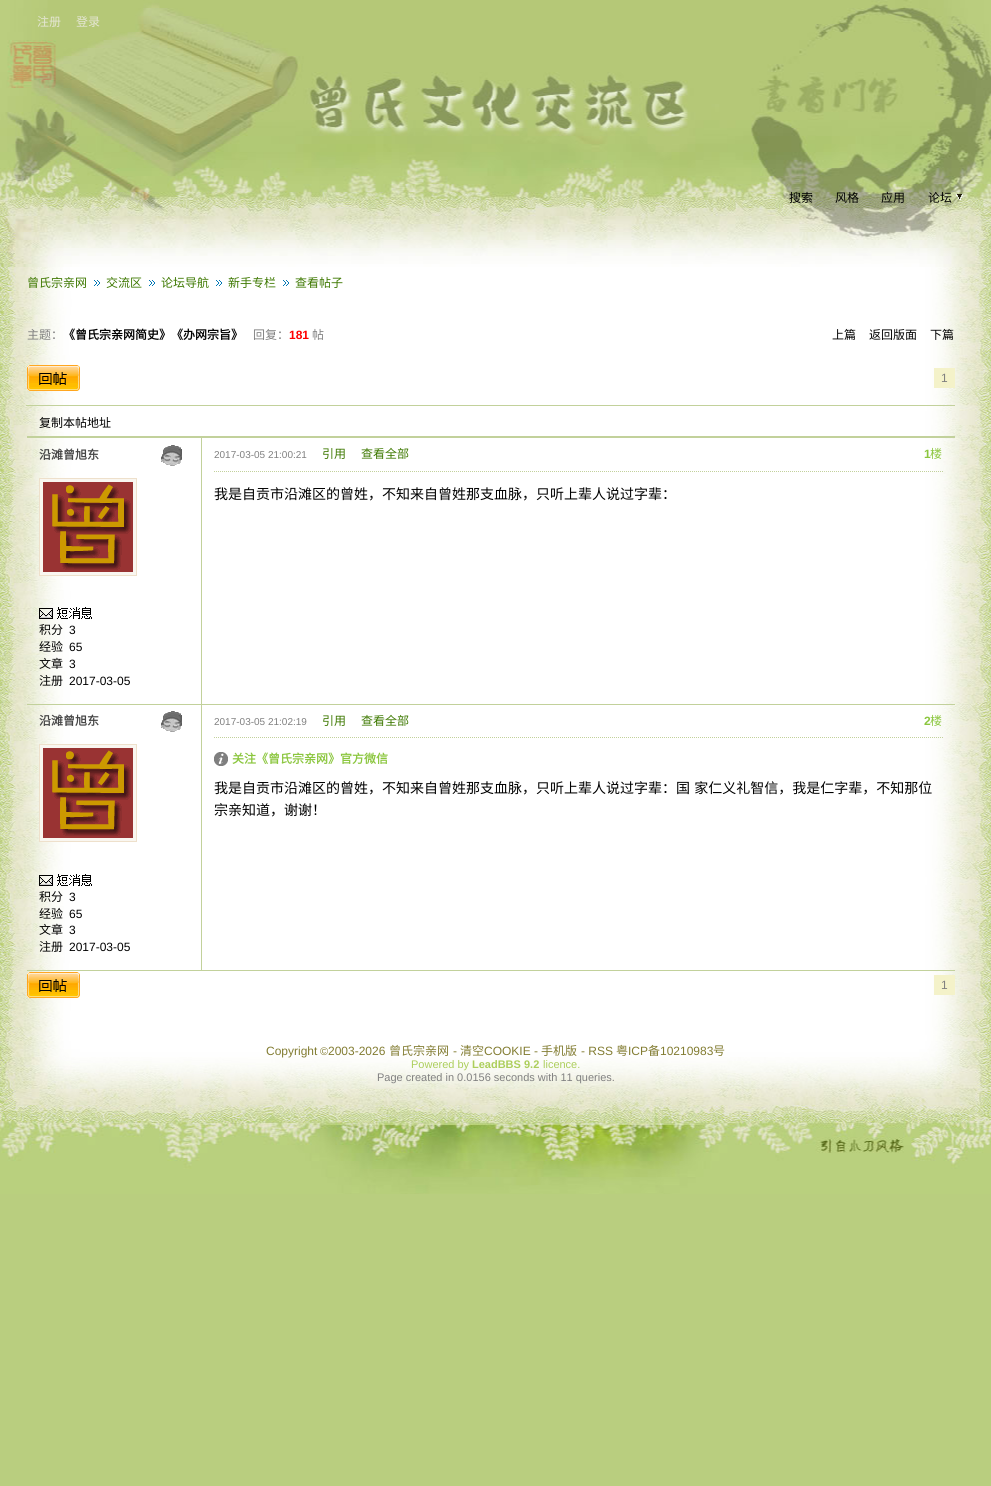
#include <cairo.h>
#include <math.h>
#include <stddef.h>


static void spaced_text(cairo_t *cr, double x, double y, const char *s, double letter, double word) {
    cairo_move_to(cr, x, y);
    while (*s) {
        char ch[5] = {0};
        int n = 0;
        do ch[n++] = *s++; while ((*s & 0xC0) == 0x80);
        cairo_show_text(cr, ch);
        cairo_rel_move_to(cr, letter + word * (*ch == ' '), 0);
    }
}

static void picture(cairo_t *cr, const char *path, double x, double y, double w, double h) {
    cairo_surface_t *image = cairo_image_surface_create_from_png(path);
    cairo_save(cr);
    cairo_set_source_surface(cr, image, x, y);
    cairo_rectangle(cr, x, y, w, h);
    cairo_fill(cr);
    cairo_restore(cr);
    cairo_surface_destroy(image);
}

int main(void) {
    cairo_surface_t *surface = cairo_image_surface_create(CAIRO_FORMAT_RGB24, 991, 1486);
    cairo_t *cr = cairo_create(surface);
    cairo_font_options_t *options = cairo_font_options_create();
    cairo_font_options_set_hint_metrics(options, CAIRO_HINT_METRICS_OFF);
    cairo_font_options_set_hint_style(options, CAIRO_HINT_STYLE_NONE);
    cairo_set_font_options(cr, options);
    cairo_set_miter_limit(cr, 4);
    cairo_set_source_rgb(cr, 0.725, 0.808, 0.498);
    cairo_paint(cr);
    picture(cr, "img1.png", 0, 0, 991, 267);
    cairo_select_font_face(cr, "Noto Sans CJK SC", CAIRO_FONT_SLANT_NORMAL, CAIRO_FONT_WEIGHT_NORMAL);
    cairo_set_font_size(cr, 12);
    cairo_set_source_rgb(cr, 0.898, 0.902, 0.831);
    cairo_move_to(cr, 37, 26);
    cairo_show_text(cr, "注册");
    cairo_move_to(cr, 76, 26);
    cairo_show_text(cr, "登录");
    cairo_set_source_rgb(cr, 0, 0, 0);
    cairo_move_to(cr, 789, 202);
    cairo_show_text(cr, "搜索");
    cairo_move_to(cr, 835, 202);
    cairo_show_text(cr, "风格");
    cairo_move_to(cr, 881, 202);
    cairo_show_text(cr, "应用");
    cairo_move_to(cr, 928, 202);
    cairo_show_text(cr, "论坛");
    picture(cr, "img2.png", 956, 194, 7, 6);
    picture(cr, "img3.png", 0, 267, 991, 774);
    cairo_set_source_rgb(cr, 0.239, 0.471, 0);
    cairo_move_to(cr, 27, 287);
    cairo_show_text(cr, "曾氏宗亲网");
    picture(cr, "img4.png", 94, 280, 6, 6);
    cairo_move_to(cr, 106, 287);
    cairo_show_text(cr, "交流区");
    picture(cr, "img4.png", 149, 280, 6, 6);
    cairo_move_to(cr, 161, 287);
    cairo_show_text(cr, "论坛导航");
    picture(cr, "img4.png", 216, 280, 6, 6);
    cairo_move_to(cr, 228, 287);
    cairo_show_text(cr, "新手专栏");
    picture(cr, "img4.png", 283, 280, 6, 6);
    cairo_move_to(cr, 295, 287);
    cairo_show_text(cr, "查看帖子");
    cairo_set_source_rgb(cr, 0.502, 0.502, 0.502);
    cairo_move_to(cr, 27, 339);
    cairo_show_text(cr, "主题：");
    cairo_select_font_face(cr, "Noto Sans CJK SC", CAIRO_FONT_SLANT_NORMAL, CAIRO_FONT_WEIGHT_BOLD);
    cairo_set_source_rgb(cr, 0, 0, 0);
    cairo_move_to(cr, 63, 339);
    cairo_show_text(cr, "《曾氏宗亲网简史》《办网宗旨》");
    cairo_select_font_face(cr, "Noto Sans CJK SC", CAIRO_FONT_SLANT_NORMAL, CAIRO_FONT_WEIGHT_NORMAL);
    cairo_set_source_rgb(cr, 0.502, 0.502, 0.502);
    cairo_move_to(cr, 253, 339);
    cairo_show_text(cr, "回复：");
    cairo_select_font_face(cr, "Liberation Sans", CAIRO_FONT_SLANT_NORMAL, CAIRO_FONT_WEIGHT_BOLD);
    cairo_set_source_rgb(cr, 1, 0, 0);
    cairo_move_to(cr, 289, 339);
    cairo_show_text(cr, "181");
    cairo_select_font_face(cr, "Noto Sans CJK SC", CAIRO_FONT_SLANT_NORMAL, CAIRO_FONT_WEIGHT_NORMAL);
    cairo_set_source_rgb(cr, 0.502, 0.502, 0.502);
    cairo_move_to(cr, 312, 339);
    cairo_show_text(cr, "帖");
    cairo_set_source_rgb(cr, 0, 0, 0);
    cairo_move_to(cr, 832, 339);
    cairo_show_text(cr, "上篇");
    cairo_move_to(cr, 869, 339);
    cairo_show_text(cr, "返回版面");
    cairo_move_to(cr, 930, 339);
    cairo_show_text(cr, "下篇");
    picture(cr, "img5.png", 27, 365, 53, 26);
    cairo_set_source_rgb(cr, 0.957, 0.949, 0.788);
    cairo_rectangle(cr, 934, 368, 21, 20);
    cairo_fill(cr);
    cairo_select_font_face(cr, "Liberation Sans", CAIRO_FONT_SLANT_NORMAL, CAIRO_FONT_WEIGHT_NORMAL);
    cairo_set_source_rgb(cr, 0.502, 0.502, 0.502);
    cairo_move_to(cr, 941, 382);
    cairo_show_text(cr, "1");
    cairo_set_source_rgb(cr, 0.761, 0.82, 0.608);
    cairo_rectangle(cr, 26, 405, 929, 1);
    cairo_fill(cr);
    cairo_select_font_face(cr, "Noto Sans CJK SC", CAIRO_FONT_SLANT_NORMAL, CAIRO_FONT_WEIGHT_NORMAL);
    cairo_set_source_rgb(cr, 0, 0, 0);
    cairo_move_to(cr, 39, 427);
    cairo_show_text(cr, "复制本帖地址");
    cairo_set_source_rgb(cr, 0.761, 0.82, 0.608);
    cairo_rectangle(cr, 27, 436, 928, 2);
    cairo_fill(cr);
    cairo_rectangle(cr, 27, 704, 928, 1);
    cairo_fill(cr);
    cairo_select_font_face(cr, "Noto Sans CJK SC", CAIRO_FONT_SLANT_NORMAL, CAIRO_FONT_WEIGHT_BOLD);
    cairo_set_source_rgb(cr, 0.271, 0.271, 0.271);
    cairo_move_to(cr, 39, 459);
    cairo_show_text(cr, "沿滩曾旭东");
    picture(cr, "img6.png", 161, 445, 21, 21);
    cairo_new_path(cr);
    cairo_move_to(cr, 214, 471.5);
    cairo_line_to(cr, 943, 471.5);
    cairo_set_source_rgb(cr, 0.761, 0.82, 0.608);
    cairo_set_line_width(cr, 1);
    cairo_set_dash(cr, (double[]){1, 1}, 2, 0);
    cairo_stroke(cr);
    cairo_select_font_face(cr, "Liberation Sans", CAIRO_FONT_SLANT_NORMAL, CAIRO_FONT_WEIGHT_NORMAL);
    cairo_set_font_size(cr, 10);
    cairo_set_source_rgb(cr, 0.502, 0.502, 0.502);
    cairo_move_to(cr, 214, 458);
    cairo_show_text(cr, "2017-03-05 21:00:21");
    cairo_select_font_face(cr, "Noto Sans CJK SC", CAIRO_FONT_SLANT_NORMAL, CAIRO_FONT_WEIGHT_NORMAL);
    cairo_set_font_size(cr, 12);
    cairo_set_source_rgb(cr, 0.239, 0.471, 0);
    cairo_move_to(cr, 322, 458);
    cairo_show_text(cr, "引用");
    cairo_move_to(cr, 361, 458);
    cairo_show_text(cr, "查看全部");
    cairo_select_font_face(cr, "Liberation Sans", CAIRO_FONT_SLANT_NORMAL, CAIRO_FONT_WEIGHT_BOLD);
    cairo_set_source_rgb(cr, 0.545, 0.776, 0.243);
    cairo_move_to(cr, 924, 458);
    cairo_show_text(cr, "1");
    cairo_select_font_face(cr, "Noto Sans CJK SC", CAIRO_FONT_SLANT_NORMAL, CAIRO_FONT_WEIGHT_NORMAL);
    cairo_move_to(cr, 930, 458);
    cairo_show_text(cr, "楼");
    cairo_set_font_size(cr, 14);
    cairo_set_source_rgb(cr, 0, 0, 0);
    cairo_move_to(cr, 214, 499);
    cairo_show_text(cr, "我是自贡市沿滩区的曾姓，不知来自曾姓那支血脉，只听上辈人说过字辈：");
    cairo_set_source_rgb(cr, 0.761, 0.82, 0.608);
    cairo_rectangle(cr, 201, 438, 1, 267);
    cairo_fill(cr);
    cairo_set_source_rgb(cr, 0.976, 0.961, 0.941);
    cairo_rectangle(cr, 39.5, 478.5, 97, 97);
    cairo_fill_preserve(cr);
    cairo_set_source_rgb(cr, 0.933, 0.878, 0.796);
    cairo_set_dash(cr, NULL, 0, 0);
    cairo_stroke(cr);
    picture(cr, "img7.png", 43, 482, 90, 90);
    picture(cr, "img8.png", 39, 607, 53, 12);
    cairo_set_font_size(cr, 12);
    cairo_set_source_rgb(cr, 0, 0, 0);
    cairo_move_to(cr, 39, 634);
    cairo_show_text(cr, "积分");
    cairo_select_font_face(cr, "Liberation Sans", CAIRO_FONT_SLANT_NORMAL, CAIRO_FONT_WEIGHT_NORMAL);
    cairo_move_to(cr, 69, 634);
    cairo_show_text(cr, "3");
    cairo_select_font_face(cr, "Noto Sans CJK SC", CAIRO_FONT_SLANT_NORMAL, CAIRO_FONT_WEIGHT_NORMAL);
    cairo_move_to(cr, 39, 651);
    cairo_show_text(cr, "经验");
    cairo_select_font_face(cr, "Liberation Sans", CAIRO_FONT_SLANT_NORMAL, CAIRO_FONT_WEIGHT_NORMAL);
    cairo_move_to(cr, 69, 651);
    cairo_show_text(cr, "65");
    cairo_select_font_face(cr, "Noto Sans CJK SC", CAIRO_FONT_SLANT_NORMAL, CAIRO_FONT_WEIGHT_NORMAL);
    cairo_move_to(cr, 39, 668);
    cairo_show_text(cr, "文章");
    cairo_select_font_face(cr, "Liberation Sans", CAIRO_FONT_SLANT_NORMAL, CAIRO_FONT_WEIGHT_NORMAL);
    cairo_move_to(cr, 69, 668);
    cairo_show_text(cr, "3");
    cairo_select_font_face(cr, "Noto Sans CJK SC", CAIRO_FONT_SLANT_NORMAL, CAIRO_FONT_WEIGHT_NORMAL);
    cairo_move_to(cr, 39, 685);
    cairo_show_text(cr, "注册");
    cairo_select_font_face(cr, "Liberation Sans", CAIRO_FONT_SLANT_NORMAL, CAIRO_FONT_WEIGHT_NORMAL);
    cairo_move_to(cr, 69, 685);
    cairo_show_text(cr, "2017-03-05");
    cairo_set_source_rgb(cr, 0.761, 0.82, 0.608);
    cairo_rectangle(cr, 27, 970, 928, 1);
    cairo_fill(cr);
    cairo_select_font_face(cr, "Noto Sans CJK SC", CAIRO_FONT_SLANT_NORMAL, CAIRO_FONT_WEIGHT_BOLD);
    cairo_set_source_rgb(cr, 0.271, 0.271, 0.271);
    cairo_move_to(cr, 39, 725);
    cairo_show_text(cr, "沿滩曾旭东");
    picture(cr, "img6.png", 161, 711, 21, 21);
    cairo_new_path(cr);
    cairo_move_to(cr, 214, 737.5);
    cairo_line_to(cr, 943, 737.5);
    cairo_set_source_rgb(cr, 0.761, 0.82, 0.608);
    cairo_set_dash(cr, (double[]){1, 1}, 2, 0);
    cairo_stroke(cr);
    cairo_select_font_face(cr, "Liberation Sans", CAIRO_FONT_SLANT_NORMAL, CAIRO_FONT_WEIGHT_NORMAL);
    cairo_set_font_size(cr, 10);
    cairo_set_source_rgb(cr, 0.502, 0.502, 0.502);
    cairo_move_to(cr, 214, 725);
    cairo_show_text(cr, "2017-03-05 21:02:19");
    cairo_select_font_face(cr, "Noto Sans CJK SC", CAIRO_FONT_SLANT_NORMAL, CAIRO_FONT_WEIGHT_NORMAL);
    cairo_set_font_size(cr, 12);
    cairo_set_source_rgb(cr, 0.239, 0.471, 0);
    cairo_move_to(cr, 322, 725);
    cairo_show_text(cr, "引用");
    cairo_move_to(cr, 361, 725);
    cairo_show_text(cr, "查看全部");
    cairo_select_font_face(cr, "Liberation Sans", CAIRO_FONT_SLANT_NORMAL, CAIRO_FONT_WEIGHT_BOLD);
    cairo_set_source_rgb(cr, 0.545, 0.776, 0.243);
    cairo_move_to(cr, 924, 725);
    cairo_show_text(cr, "2");
    cairo_select_font_face(cr, "Noto Sans CJK SC", CAIRO_FONT_SLANT_NORMAL, CAIRO_FONT_WEIGHT_NORMAL);
    cairo_move_to(cr, 930, 725);
    cairo_show_text(cr, "楼");
    picture(cr, "img9.png", 214, 752, 14, 14);
    cairo_select_font_face(cr, "Noto Sans CJK SC", CAIRO_FONT_SLANT_NORMAL, CAIRO_FONT_WEIGHT_BOLD);
    cairo_move_to(cr, 232, 763);
    cairo_show_text(cr, "关注《曾氏宗亲网》官方微信");
    cairo_select_font_face(cr, "Noto Sans CJK SC", CAIRO_FONT_SLANT_NORMAL, CAIRO_FONT_WEIGHT_NORMAL);
    cairo_set_font_size(cr, 14);
    cairo_set_source_rgb(cr, 0, 0, 0);
    spaced_text(cr, 214, 793, "我是自贡市沿滩区的曾姓，不知来自曾姓那支血脉，只听上辈人说过字辈：国 家仁义礼智信，我是仁字辈，不知那位", 0, 1);
    cairo_move_to(cr, 214, 815);
    cairo_show_text(cr, "宗亲知道，谢谢！");
    cairo_set_source_rgb(cr, 0.761, 0.82, 0.608);
    cairo_rectangle(cr, 201, 704, 1, 267);
    cairo_fill(cr);
    cairo_set_source_rgb(cr, 0.976, 0.961, 0.941);
    cairo_rectangle(cr, 39.5, 744.5, 97, 97);
    cairo_fill_preserve(cr);
    cairo_set_source_rgb(cr, 0.933, 0.878, 0.796);
    cairo_set_dash(cr, NULL, 0, 0);
    cairo_stroke(cr);
    picture(cr, "img7.png", 43, 748, 90, 90);
    picture(cr, "img10.png", 39, 873, 53, 13);
    cairo_set_font_size(cr, 12);
    cairo_set_source_rgb(cr, 0, 0, 0);
    cairo_move_to(cr, 39, 901);
    cairo_show_text(cr, "积分");
    cairo_select_font_face(cr, "Liberation Sans", CAIRO_FONT_SLANT_NORMAL, CAIRO_FONT_WEIGHT_NORMAL);
    cairo_move_to(cr, 69, 901);
    cairo_show_text(cr, "3");
    cairo_select_font_face(cr, "Noto Sans CJK SC", CAIRO_FONT_SLANT_NORMAL, CAIRO_FONT_WEIGHT_NORMAL);
    cairo_move_to(cr, 39, 918);
    cairo_show_text(cr, "经验");
    cairo_select_font_face(cr, "Liberation Sans", CAIRO_FONT_SLANT_NORMAL, CAIRO_FONT_WEIGHT_NORMAL);
    cairo_move_to(cr, 69, 918);
    cairo_show_text(cr, "65");
    cairo_select_font_face(cr, "Noto Sans CJK SC", CAIRO_FONT_SLANT_NORMAL, CAIRO_FONT_WEIGHT_NORMAL);
    cairo_move_to(cr, 39, 934);
    cairo_show_text(cr, "文章");
    cairo_select_font_face(cr, "Liberation Sans", CAIRO_FONT_SLANT_NORMAL, CAIRO_FONT_WEIGHT_NORMAL);
    cairo_move_to(cr, 69, 934);
    cairo_show_text(cr, "3");
    cairo_select_font_face(cr, "Noto Sans CJK SC", CAIRO_FONT_SLANT_NORMAL, CAIRO_FONT_WEIGHT_NORMAL);
    cairo_move_to(cr, 39, 951);
    cairo_show_text(cr, "注册");
    cairo_select_font_face(cr, "Liberation Sans", CAIRO_FONT_SLANT_NORMAL, CAIRO_FONT_WEIGHT_NORMAL);
    cairo_move_to(cr, 69, 951);
    cairo_show_text(cr, "2017-03-05");
    picture(cr, "img11.png", 27, 972, 53, 26);
    cairo_set_source_rgb(cr, 0.957, 0.949, 0.788);
    cairo_rectangle(cr, 934, 975, 21, 20);
    cairo_fill(cr);
    cairo_set_source_rgb(cr, 0.502, 0.502, 0.502);
    cairo_move_to(cr, 941, 989);
    cairo_show_text(cr, "1");
    picture(cr, "img12.png", 0, 1041, 991, 153);
    cairo_set_source_rgb(cr, 0.51, 0.486, 0.192);
    cairo_move_to(cr, 266, 1055);
    cairo_show_text(cr, "Copyright");
    cairo_set_font_size(cr, 11);
    cairo_move_to(cr, 320, 1055);
    cairo_show_text(cr, "©");
    cairo_set_font_size(cr, 12);
    cairo_move_to(cr, 328, 1055);
    cairo_show_text(cr, "2003-2026");
    cairo_select_font_face(cr, "Noto Sans CJK SC", CAIRO_FONT_SLANT_NORMAL, CAIRO_FONT_WEIGHT_NORMAL);
    cairo_move_to(cr, 389, 1055);
    cairo_show_text(cr, "曾氏宗亲网");
    cairo_select_font_face(cr, "Liberation Sans", CAIRO_FONT_SLANT_NORMAL, CAIRO_FONT_WEIGHT_NORMAL);
    cairo_move_to(cr, 453, 1055);
    cairo_show_text(cr, "-");
    cairo_select_font_face(cr, "Noto Sans CJK SC", CAIRO_FONT_SLANT_NORMAL, CAIRO_FONT_WEIGHT_NORMAL);
    cairo_move_to(cr, 460, 1055);
    cairo_show_text(cr, "清空");
    cairo_select_font_face(cr, "Liberation Sans", CAIRO_FONT_SLANT_NORMAL, CAIRO_FONT_WEIGHT_NORMAL);
    cairo_move_to(cr, 484, 1055);
    cairo_show_text(cr, "COOKIE -");
    cairo_select_font_face(cr, "Noto Sans CJK SC", CAIRO_FONT_SLANT_NORMAL, CAIRO_FONT_WEIGHT_NORMAL);
    cairo_move_to(cr, 541, 1055);
    cairo_show_text(cr, "手机版");
    cairo_select_font_face(cr, "Liberation Sans", CAIRO_FONT_SLANT_NORMAL, CAIRO_FONT_WEIGHT_NORMAL);
    cairo_move_to(cr, 581, 1055);
    cairo_show_text(cr, "- RSS");
    cairo_select_font_face(cr, "Noto Sans CJK SC", CAIRO_FONT_SLANT_NORMAL, CAIRO_FONT_WEIGHT_NORMAL);
    cairo_move_to(cr, 616, 1055);
    cairo_show_text(cr, "粤");
    cairo_select_font_face(cr, "Liberation Sans", CAIRO_FONT_SLANT_NORMAL, CAIRO_FONT_WEIGHT_NORMAL);
    cairo_move_to(cr, 628, 1055);
    cairo_show_text(cr, "ICP");
    cairo_select_font_face(cr, "Noto Sans CJK SC", CAIRO_FONT_SLANT_NORMAL, CAIRO_FONT_WEIGHT_NORMAL);
    cairo_move_to(cr, 648, 1055);
    cairo_show_text(cr, "备");
    cairo_select_font_face(cr, "Liberation Sans", CAIRO_FONT_SLANT_NORMAL, CAIRO_FONT_WEIGHT_NORMAL);
    cairo_move_to(cr, 660, 1055);
    cairo_show_text(cr, "10210983");
    cairo_select_font_face(cr, "Noto Sans CJK SC", CAIRO_FONT_SLANT_NORMAL, CAIRO_FONT_WEIGHT_NORMAL);
    cairo_move_to(cr, 713, 1055);
    cairo_show_text(cr, "号");
    cairo_select_font_face(cr, "Liberation Sans", CAIRO_FONT_SLANT_NORMAL, CAIRO_FONT_WEIGHT_NORMAL);
    cairo_set_font_size(cr, 11);
    cairo_set_source_rgb(cr, 0.675, 0.808, 0.357);
    cairo_move_to(cr, 411, 1068);
    cairo_show_text(cr, "Powered by");
    cairo_select_font_face(cr, "Liberation Sans", CAIRO_FONT_SLANT_NORMAL, CAIRO_FONT_WEIGHT_BOLD);
    cairo_move_to(cr, 472, 1068);
    cairo_show_text(cr, "LeadBBS 9.2");
    cairo_select_font_face(cr, "Liberation Sans", CAIRO_FONT_SLANT_NORMAL, CAIRO_FONT_WEIGHT_NORMAL);
    cairo_move_to(cr, 543, 1068);
    cairo_show_text(cr, "licence.");
    cairo_set_source_rgb(cr, 0.502, 0.502, 0.502);
    cairo_move_to(cr, 377, 1081);
    cairo_show_text(cr, "Page created in 0.0156 seconds with 11 queries.");
    cairo_surface_write_to_png(surface, "page.png");
    cairo_font_options_destroy(options);
    cairo_destroy(cr);
    cairo_surface_destroy(surface);
    return 0;
}
